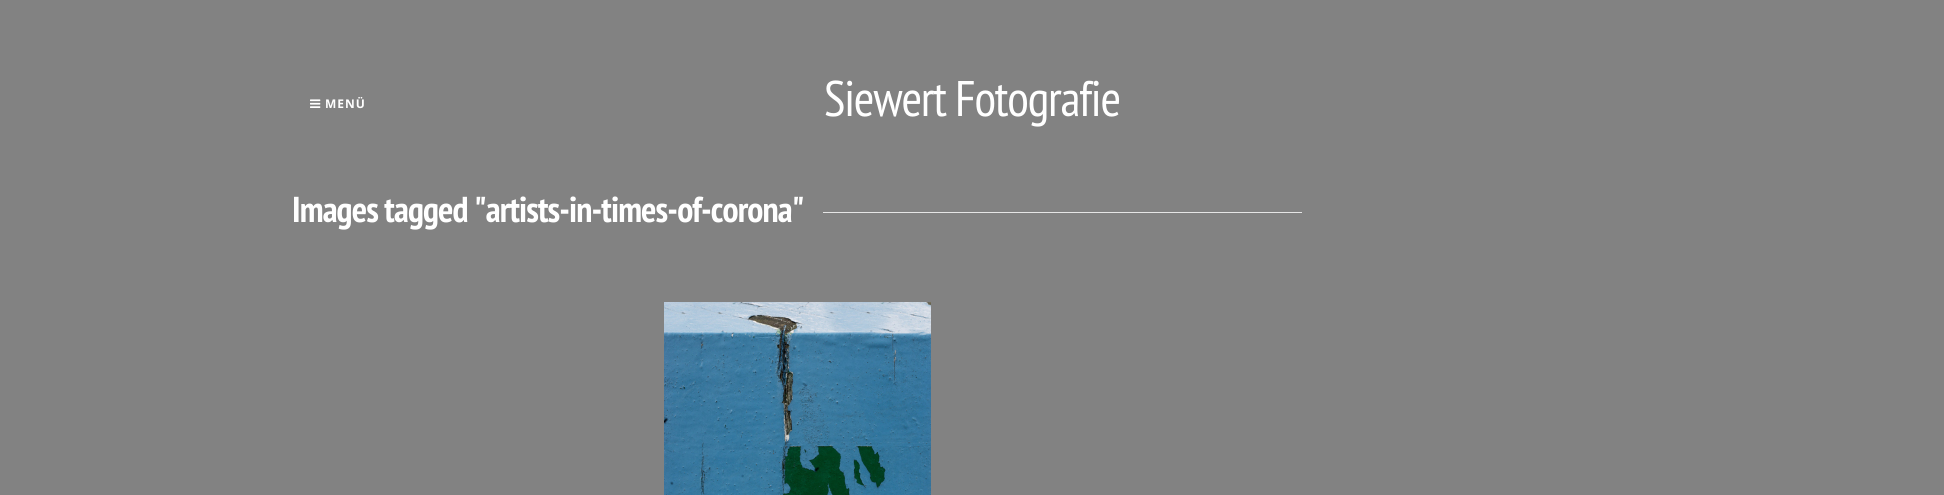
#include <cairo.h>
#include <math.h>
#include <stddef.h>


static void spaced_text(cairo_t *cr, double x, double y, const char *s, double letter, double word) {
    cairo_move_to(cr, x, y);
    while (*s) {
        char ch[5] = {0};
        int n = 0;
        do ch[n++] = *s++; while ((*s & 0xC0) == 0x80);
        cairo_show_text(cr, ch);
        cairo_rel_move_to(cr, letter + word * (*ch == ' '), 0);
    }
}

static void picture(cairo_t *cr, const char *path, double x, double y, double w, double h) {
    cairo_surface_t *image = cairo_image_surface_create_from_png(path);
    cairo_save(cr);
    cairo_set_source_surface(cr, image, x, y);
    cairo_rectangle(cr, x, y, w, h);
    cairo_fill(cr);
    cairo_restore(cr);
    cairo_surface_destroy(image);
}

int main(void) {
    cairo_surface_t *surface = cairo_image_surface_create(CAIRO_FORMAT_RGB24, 1944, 495);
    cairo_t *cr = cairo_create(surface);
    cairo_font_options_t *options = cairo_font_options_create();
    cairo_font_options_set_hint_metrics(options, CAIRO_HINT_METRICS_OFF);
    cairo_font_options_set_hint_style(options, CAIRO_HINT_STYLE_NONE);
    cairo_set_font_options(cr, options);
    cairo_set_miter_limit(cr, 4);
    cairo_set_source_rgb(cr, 0.51, 0.51, 0.51);
    cairo_paint(cr);
    picture(cr, "img1.png", 310, 99, 11, 9);
    cairo_select_font_face(cr, "Open Sans", CAIRO_FONT_SLANT_NORMAL, CAIRO_FONT_WEIGHT_BOLD);
    cairo_set_font_size(cr, 12);
    cairo_set_source_rgb(cr, 1, 1, 1);
    spaced_text(cr, 325, 108, "MENÜ", 1, 0);
    cairo_select_font_face(cr, "PT Sans Narrow", CAIRO_FONT_SLANT_NORMAL, CAIRO_FONT_WEIGHT_NORMAL);
    cairo_set_font_size(cr, 50);
    spaced_text(cr, 824, 116, "Siewert Fotografie", -1.25, 0);
    cairo_select_font_face(cr, "PT Sans Narrow", CAIRO_FONT_SLANT_NORMAL, CAIRO_FONT_WEIGHT_BOLD);
    cairo_set_font_size(cr, 36);
    spaced_text(cr, 292, 222, "Images tagged \"artists-in-times-of-corona\"", -0.9, 0);
    cairo_set_source_rgb(cr, 0.898, 0.898, 0.898);
    cairo_rectangle(cr, 823, 212, 479, 1);
    cairo_fill(cr);
    picture(cr, "img2.png", 664, 302, 267, 193);
    cairo_surface_write_to_png(surface, "page.png");
    cairo_font_options_destroy(options);
    cairo_destroy(cr);
    cairo_surface_destroy(surface);
    return 0;
}
